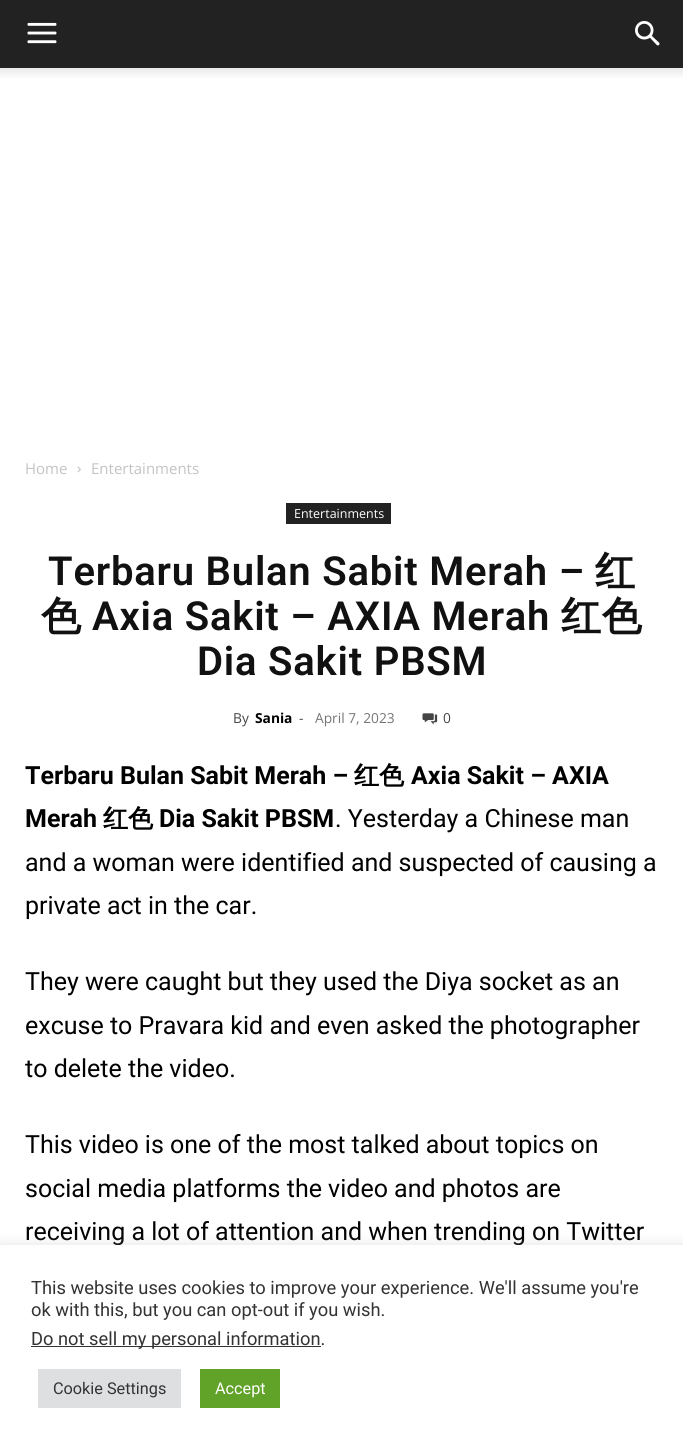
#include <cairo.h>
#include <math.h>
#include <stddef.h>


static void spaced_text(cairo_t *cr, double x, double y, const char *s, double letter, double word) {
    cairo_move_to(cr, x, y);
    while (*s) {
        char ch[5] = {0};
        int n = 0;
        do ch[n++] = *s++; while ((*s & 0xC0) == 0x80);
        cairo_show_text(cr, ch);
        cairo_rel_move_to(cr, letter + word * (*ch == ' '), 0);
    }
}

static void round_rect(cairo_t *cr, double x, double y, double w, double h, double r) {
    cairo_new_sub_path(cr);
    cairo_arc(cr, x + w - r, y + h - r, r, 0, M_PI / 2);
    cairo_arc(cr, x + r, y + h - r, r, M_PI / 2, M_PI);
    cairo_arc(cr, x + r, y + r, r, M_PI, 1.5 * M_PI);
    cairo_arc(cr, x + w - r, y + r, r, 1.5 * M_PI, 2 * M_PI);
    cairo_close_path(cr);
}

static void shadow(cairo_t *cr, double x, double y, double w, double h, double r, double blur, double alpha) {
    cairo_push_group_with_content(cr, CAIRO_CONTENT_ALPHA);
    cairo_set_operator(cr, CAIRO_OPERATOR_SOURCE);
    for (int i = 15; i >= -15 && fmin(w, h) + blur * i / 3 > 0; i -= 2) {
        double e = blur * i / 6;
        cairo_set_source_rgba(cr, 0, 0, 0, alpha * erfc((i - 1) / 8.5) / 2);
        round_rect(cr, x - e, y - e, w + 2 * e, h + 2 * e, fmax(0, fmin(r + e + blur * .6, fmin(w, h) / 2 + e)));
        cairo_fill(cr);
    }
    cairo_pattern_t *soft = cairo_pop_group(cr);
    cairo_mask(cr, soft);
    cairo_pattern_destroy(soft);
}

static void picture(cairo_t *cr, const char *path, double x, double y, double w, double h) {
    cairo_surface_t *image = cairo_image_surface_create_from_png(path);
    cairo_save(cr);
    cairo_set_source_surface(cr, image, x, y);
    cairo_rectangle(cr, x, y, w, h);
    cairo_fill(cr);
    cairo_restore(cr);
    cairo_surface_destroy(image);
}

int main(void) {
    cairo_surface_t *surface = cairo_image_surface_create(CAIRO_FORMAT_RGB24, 683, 1444);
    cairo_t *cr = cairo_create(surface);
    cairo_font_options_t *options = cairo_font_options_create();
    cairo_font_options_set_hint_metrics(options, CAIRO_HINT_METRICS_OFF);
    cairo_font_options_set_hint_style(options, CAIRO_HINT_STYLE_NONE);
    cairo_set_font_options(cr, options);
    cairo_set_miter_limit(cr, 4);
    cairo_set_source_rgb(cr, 1, 1, 1);
    cairo_paint(cr);
    cairo_set_source_rgb(cr, 0.133, 0.133, 0.133);
    cairo_rectangle(cr, 0, 0, 683, 68);
    cairo_fill(cr);
    picture(cr, "img1.png", 27, 22, 30, 22);
    picture(cr, "img2.png", 635, 21, 25, 25);
    picture(cr, "img3.png", 0, 68, 683, 10);
    cairo_select_font_face(cr, "Open Sans", CAIRO_FONT_SLANT_NORMAL, CAIRO_FONT_WEIGHT_NORMAL);
    cairo_set_font_size(cr, 15);
    cairo_set_source_rgb(cr, 0.765, 0.765, 0.765);
    cairo_move_to(cr, 25, 474);
    cairo_show_text(cr, "Home");
    picture(cr, "img4.png", 77, 466, 4, 7);
    cairo_move_to(cr, 91, 474);
    cairo_show_text(cr, "Entertainments");
    cairo_set_source_rgb(cr, 0.133, 0.133, 0.133);
    cairo_rectangle(cr, 286, 503, 105, 21);
    cairo_fill(cr);
    cairo_set_font_size(cr, 12.5);
    cairo_set_source_rgb(cr, 1, 1, 1);
    cairo_move_to(cr, 294, 518);
    cairo_show_text(cr, "Entertainments");
    cairo_select_font_face(cr, "Roboto SemiBold", CAIRO_FONT_SLANT_NORMAL, CAIRO_FONT_WEIGHT_NORMAL);
    cairo_set_font_size(cr, 40);
    cairo_set_source_rgb(cr, 0.067, 0.067, 0.067);
    spaced_text(cr, 48, 585, "Terbaru Bulan Sabit Merah –", 0.8, 0);
    cairo_select_font_face(cr, "WenQuanYi Zen Hei", CAIRO_FONT_SLANT_NORMAL, CAIRO_FONT_WEIGHT_BOLD);
    spaced_text(cr, 595, 585, "红", 0.8, 0);
    spaced_text(cr, 41, 630, "色", 0.8, 0);
    cairo_select_font_face(cr, "Roboto SemiBold", CAIRO_FONT_SLANT_NORMAL, CAIRO_FONT_WEIGHT_NORMAL);
    spaced_text(cr, 92, 630, "Axia Sakit – AXIA Merah", 0.8, 0);
    cairo_select_font_face(cr, "WenQuanYi Zen Hei", CAIRO_FONT_SLANT_NORMAL, CAIRO_FONT_WEIGHT_BOLD);
    spaced_text(cr, 561, 630, "红色", 0.8, 0);
    cairo_select_font_face(cr, "Roboto SemiBold", CAIRO_FONT_SLANT_NORMAL, CAIRO_FONT_WEIGHT_NORMAL);
    spaced_text(cr, 197, 675, "Dia Sakit PBSM", 0.8, 0);
    cairo_select_font_face(cr, "Open Sans", CAIRO_FONT_SLANT_NORMAL, CAIRO_FONT_WEIGHT_NORMAL);
    cairo_set_font_size(cr, 13.75);
    cairo_set_source_rgb(cr, 0.267, 0.267, 0.267);
    cairo_move_to(cr, 233, 723);
    cairo_show_text(cr, "By");
    cairo_select_font_face(cr, "Open Sans", CAIRO_FONT_SLANT_NORMAL, CAIRO_FONT_WEIGHT_BOLD);
    cairo_set_source_rgb(cr, 0, 0, 0);
    cairo_move_to(cr, 255, 723);
    cairo_show_text(cr, "Sania");
    cairo_select_font_face(cr, "Open Sans", CAIRO_FONT_SLANT_NORMAL, CAIRO_FONT_WEIGHT_NORMAL);
    cairo_set_source_rgb(cr, 0.267, 0.267, 0.267);
    cairo_move_to(cr, 299, 723);
    cairo_show_text(cr, "-");
    cairo_set_source_rgb(cr, 0.463, 0.463, 0.463);
    cairo_move_to(cr, 315, 723);
    cairo_show_text(cr, "April 7, 2023");
    picture(cr, "img5.png", 422, 713, 16, 12);
    cairo_set_source_rgb(cr, 0.267, 0.267, 0.267);
    cairo_move_to(cr, 443, 723);
    cairo_show_text(cr, "0");
    cairo_select_font_face(cr, "Roboto", CAIRO_FONT_SLANT_NORMAL, CAIRO_FONT_WEIGHT_BOLD);
    cairo_set_font_size(cr, 25);
    cairo_set_source_rgb(cr, 0, 0, 0);
    cairo_move_to(cr, 25, 784);
    cairo_show_text(cr, "Terbaru Bulan Sabit Merah –");
    cairo_select_font_face(cr, "WenQuanYi Zen Hei", CAIRO_FONT_SLANT_NORMAL, CAIRO_FONT_WEIGHT_BOLD);
    cairo_move_to(cr, 354, 784);
    cairo_show_text(cr, "红色");
    cairo_select_font_face(cr, "Roboto", CAIRO_FONT_SLANT_NORMAL, CAIRO_FONT_WEIGHT_BOLD);
    cairo_move_to(cr, 411, 784);
    cairo_show_text(cr, "Axia Sakit – AXIA");
    cairo_move_to(cr, 25, 827);
    cairo_show_text(cr, "Merah");
    cairo_select_font_face(cr, "WenQuanYi Zen Hei", CAIRO_FONT_SLANT_NORMAL, CAIRO_FONT_WEIGHT_BOLD);
    cairo_move_to(cr, 103, 827);
    cairo_show_text(cr, "红色");
    cairo_select_font_face(cr, "Roboto", CAIRO_FONT_SLANT_NORMAL, CAIRO_FONT_WEIGHT_BOLD);
    cairo_move_to(cr, 159, 827);
    cairo_show_text(cr, "Dia Sakit PBSM");
    cairo_select_font_face(cr, "Roboto", CAIRO_FONT_SLANT_NORMAL, CAIRO_FONT_WEIGHT_NORMAL);
    cairo_move_to(cr, 335, 827);
    cairo_show_text(cr, ". Yesterday a Chinese man");
    cairo_move_to(cr, 25, 871);
    cairo_show_text(cr, "and a woman were identified and suspected of causing a");
    cairo_move_to(cr, 25, 914);
    cairo_show_text(cr, "private act in the car.");
    cairo_move_to(cr, 25, 990);
    cairo_show_text(cr, "They were caught but they used the Diya socket as an");
    cairo_move_to(cr, 25, 1034);
    cairo_show_text(cr, "excuse to Pravara kid and even asked the photographer");
    cairo_move_to(cr, 25, 1077);
    cairo_show_text(cr, "to delete the video.");
    cairo_move_to(cr, 25, 1153);
    cairo_show_text(cr, "This video is one of the most talked about topics on");
    cairo_move_to(cr, 25, 1197);
    cairo_show_text(cr, "social media platforms the video and photos are");
    cairo_move_to(cr, 25, 1240);
    cairo_show_text(cr, "receiving a lot of attention and when trending on Twitter");
    cairo_set_source_rgb(cr, 0.675, 0.671, 0.671);
    shadow(cr, 0, 1244, 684, 200, 0, 6, 0.3);
    cairo_set_source_rgb(cr, 1, 1, 1);
    cairo_rectangle(cr, 0, 1245, 683, 199);
    cairo_fill(cr);
    cairo_set_font_size(cr, 18.3);
    cairo_set_source_rgb(cr, 0.2, 0.2, 0.2);
    cairo_move_to(cr, 31, 1294);
    cairo_show_text(cr, "This website uses cookies to improve your experience. We'll assume you're");
    cairo_move_to(cr, 31, 1316);
    cairo_show_text(cr, "ok with this, but you can opt-out if you wish.");
    cairo_rectangle(cr, 31, 1346, 290, 1);
    cairo_fill(cr);
    cairo_move_to(cr, 31, 1345);
    cairo_show_text(cr, "Do not sell my personal information.");
    cairo_set_source_rgb(cr, 0.871, 0.875, 0.878);
    cairo_rectangle(cr, 38, 1369, 143, 39);
    cairo_fill(cr);
    cairo_set_font_size(cr, 16.25);
    cairo_set_source_rgb(cr, 0.2, 0.2, 0.2);
    cairo_move_to(cr, 53, 1394);
    cairo_show_text(cr, "Cookie Settings");
    cairo_set_source_rgb(cr, 0.38, 0.635, 0.161);
    cairo_rectangle(cr, 200, 1369, 80, 39);
    cairo_fill(cr);
    cairo_set_source_rgb(cr, 1, 1, 1);
    cairo_move_to(cr, 215, 1394);
    cairo_show_text(cr, "Accept");
    cairo_surface_write_to_png(surface, "page.png");
    cairo_font_options_destroy(options);
    cairo_destroy(cr);
    cairo_surface_destroy(surface);
    return 0;
}
